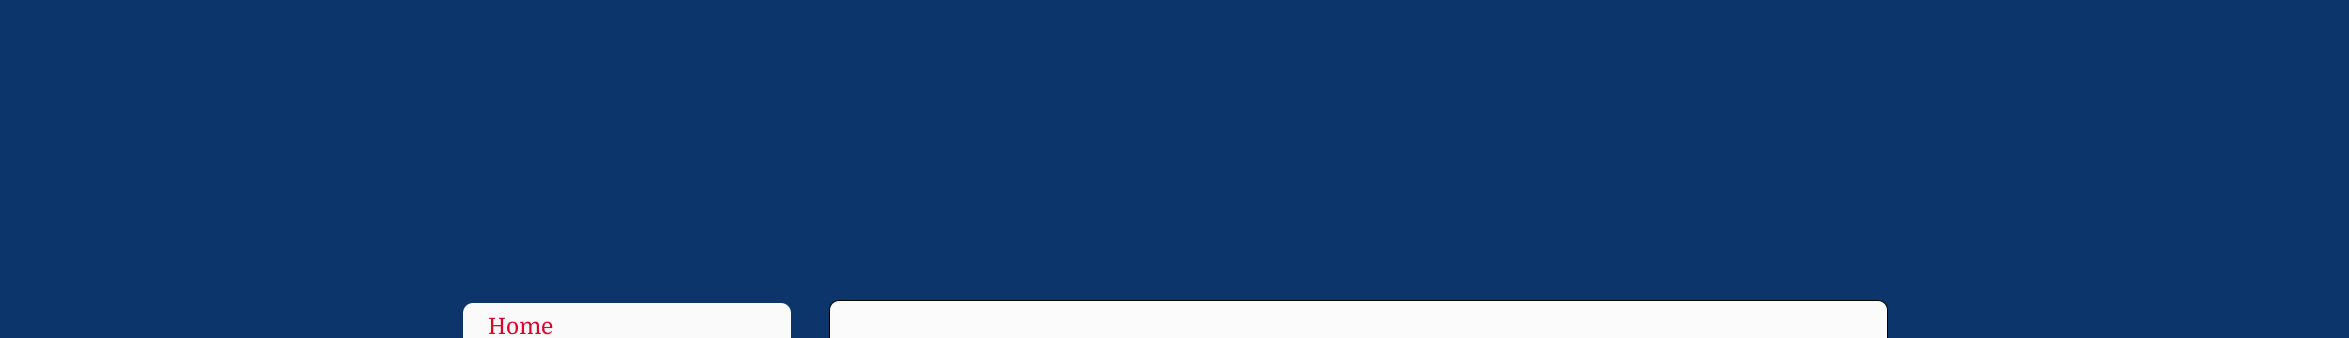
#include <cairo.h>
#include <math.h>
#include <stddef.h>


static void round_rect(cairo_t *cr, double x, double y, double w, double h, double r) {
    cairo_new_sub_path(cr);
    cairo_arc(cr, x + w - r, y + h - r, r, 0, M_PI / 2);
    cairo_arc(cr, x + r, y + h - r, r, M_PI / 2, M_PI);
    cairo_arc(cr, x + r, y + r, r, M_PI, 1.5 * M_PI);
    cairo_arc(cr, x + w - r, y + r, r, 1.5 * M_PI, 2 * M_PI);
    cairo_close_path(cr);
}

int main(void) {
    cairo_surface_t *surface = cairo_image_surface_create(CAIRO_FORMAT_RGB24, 2349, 338);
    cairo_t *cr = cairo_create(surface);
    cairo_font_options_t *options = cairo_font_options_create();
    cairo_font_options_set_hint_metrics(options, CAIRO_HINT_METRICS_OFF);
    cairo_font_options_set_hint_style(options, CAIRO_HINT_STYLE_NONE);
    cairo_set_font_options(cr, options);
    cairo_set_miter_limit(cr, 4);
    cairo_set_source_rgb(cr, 0.047, 0.208, 0.42);
    cairo_paint(cr);
    cairo_set_source_rgb(cr, 0.98, 0.98, 0.98);
    round_rect(cr, 463, 303, 328, 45, 10);
    cairo_fill(cr);
    cairo_select_font_face(cr, "Domine", CAIRO_FONT_SLANT_NORMAL, CAIRO_FONT_WEIGHT_NORMAL);
    cairo_set_font_size(cr, 22.5);
    cairo_set_source_rgb(cr, 0.863, 0.004, 0.169);
    cairo_move_to(cr, 488, 334);
    cairo_show_text(cr, "Home");
    cairo_set_source_rgb(cr, 0.984, 0.984, 0.984);
    round_rect(cr, 829.5, 300.5, 1058, 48, 9.5);
    cairo_fill_preserve(cr);
    cairo_set_source_rgb(cr, 0, 0, 0);
    cairo_set_line_width(cr, 1);
    cairo_stroke(cr);
    cairo_surface_write_to_png(surface, "page.png");
    cairo_font_options_destroy(options);
    cairo_destroy(cr);
    cairo_surface_destroy(surface);
    return 0;
}
